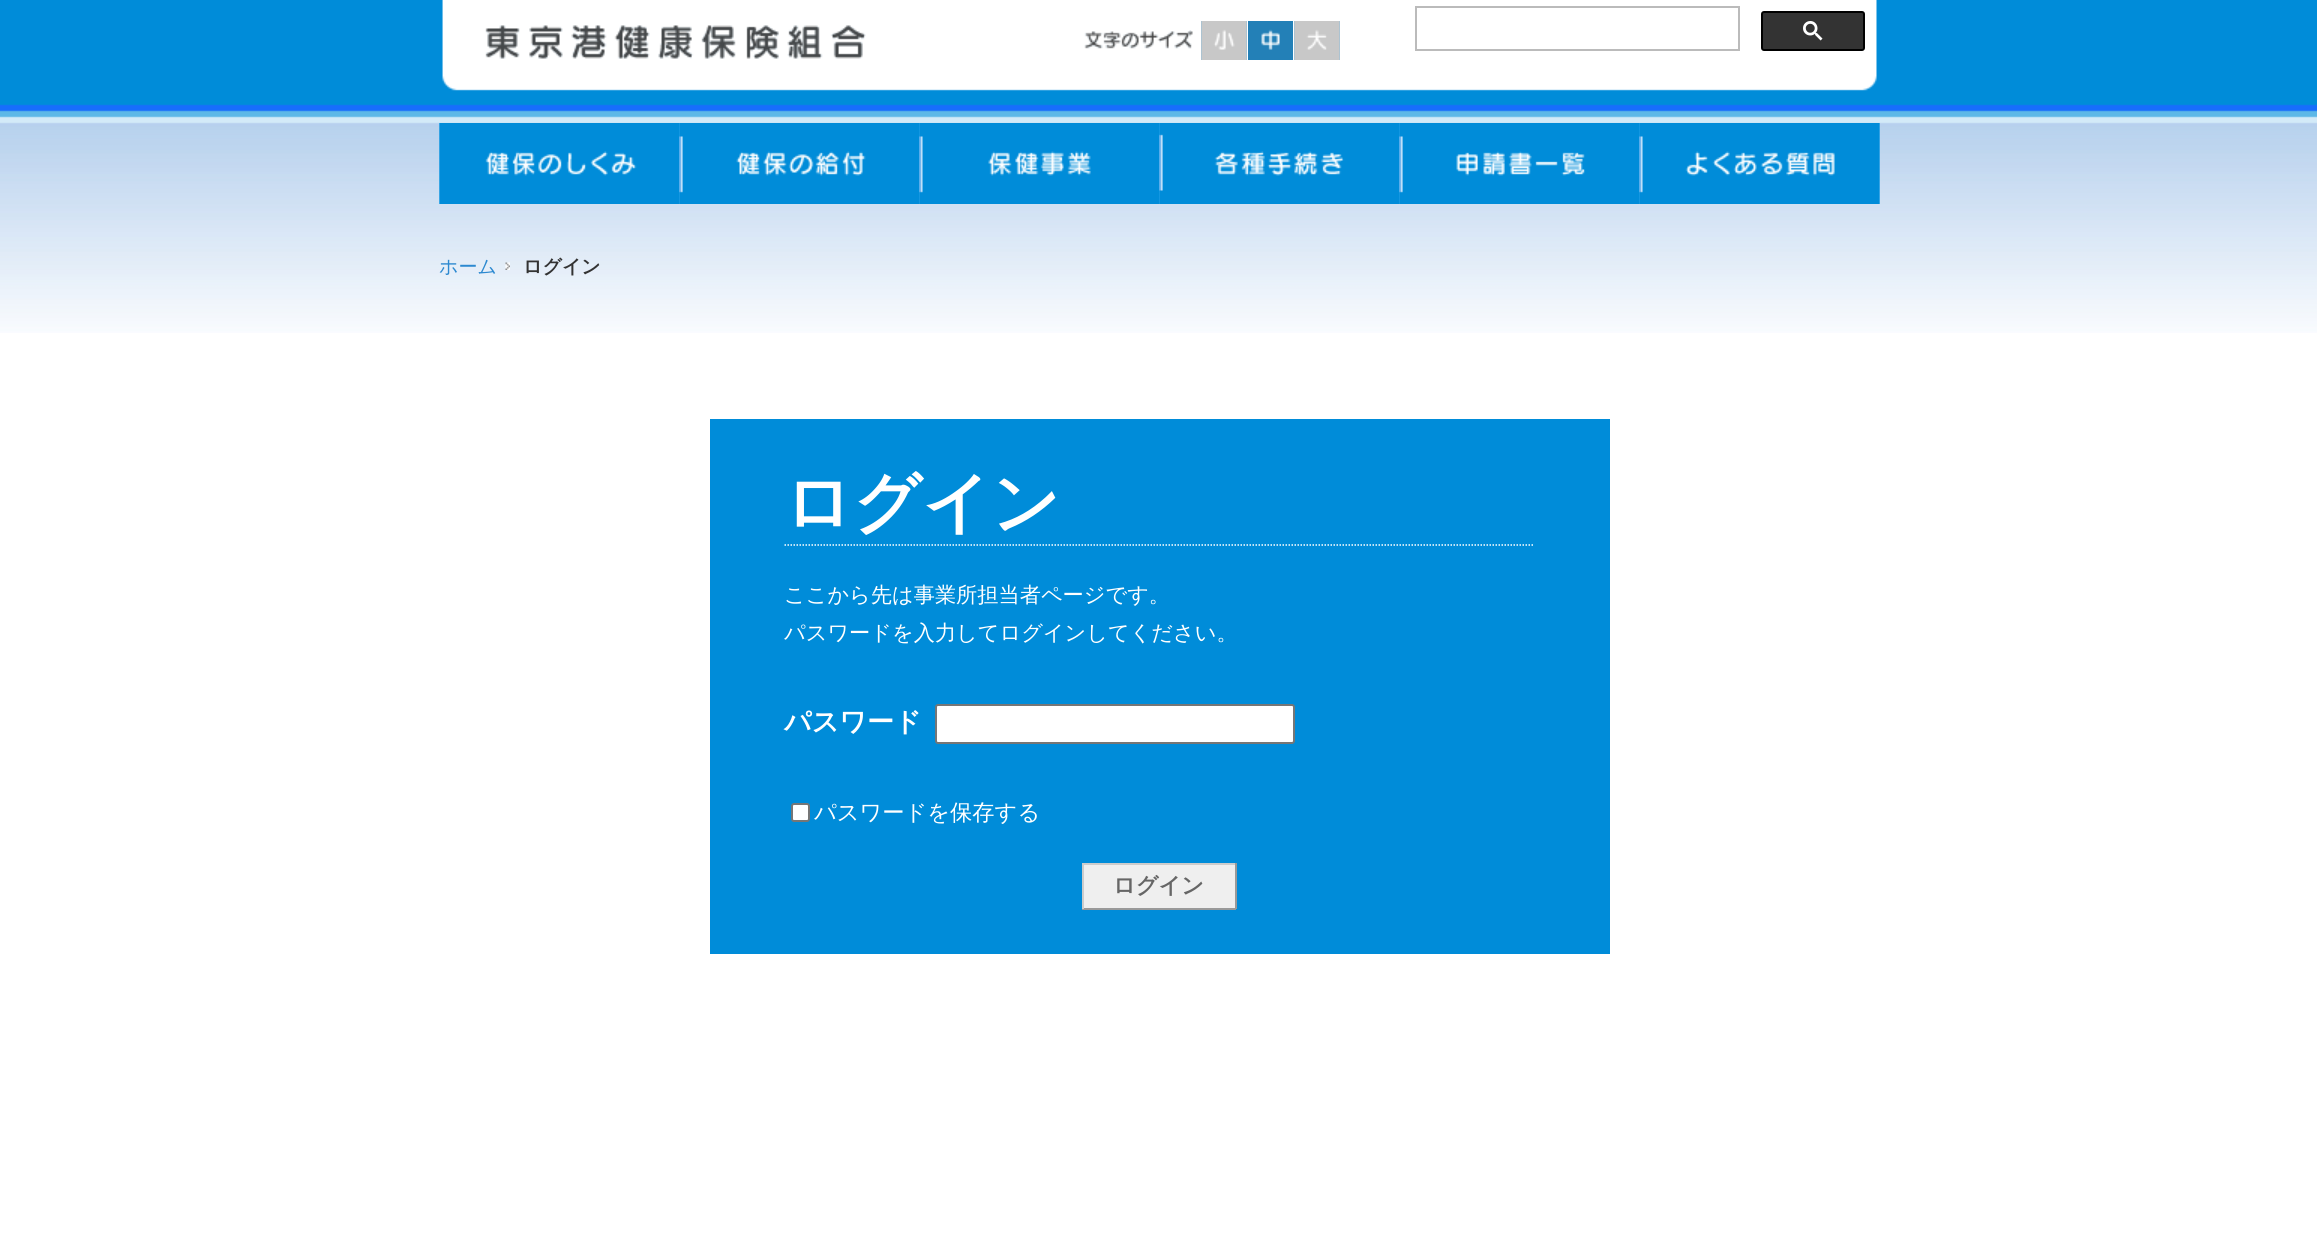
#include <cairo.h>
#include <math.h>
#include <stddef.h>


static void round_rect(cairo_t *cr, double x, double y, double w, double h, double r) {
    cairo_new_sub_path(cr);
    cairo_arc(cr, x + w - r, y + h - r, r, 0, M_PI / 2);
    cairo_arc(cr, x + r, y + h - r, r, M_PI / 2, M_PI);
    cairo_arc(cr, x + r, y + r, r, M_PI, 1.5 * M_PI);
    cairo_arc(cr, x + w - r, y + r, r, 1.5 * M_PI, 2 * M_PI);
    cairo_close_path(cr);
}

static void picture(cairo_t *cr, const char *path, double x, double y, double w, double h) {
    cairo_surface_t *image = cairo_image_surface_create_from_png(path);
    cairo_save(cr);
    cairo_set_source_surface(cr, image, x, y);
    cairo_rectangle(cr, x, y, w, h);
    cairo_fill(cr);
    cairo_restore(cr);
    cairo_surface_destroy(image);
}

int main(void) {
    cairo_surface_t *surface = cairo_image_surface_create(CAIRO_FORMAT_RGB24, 2317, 1253);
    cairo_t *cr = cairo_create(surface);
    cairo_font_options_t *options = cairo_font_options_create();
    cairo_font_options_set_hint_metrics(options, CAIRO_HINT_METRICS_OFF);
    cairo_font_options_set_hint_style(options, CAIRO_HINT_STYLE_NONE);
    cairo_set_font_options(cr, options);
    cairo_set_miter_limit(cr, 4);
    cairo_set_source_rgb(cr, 1, 1, 1);
    cairo_paint(cr);
    picture(cr, "img1.png", 0, 0, 2317, 333);
    picture(cr, "img2.png", 442, 0, 1435, 91);
    picture(cr, "img3.png", 485, 25, 381, 34);
    picture(cr, "img4.png", 1084, 30, 109, 19);
    picture(cr, "img5.png", 1201, 21, 46, 39);
    picture(cr, "img6.png", 1201, 21, 46, 39);
    picture(cr, "img7.png", 1248, 21, 45, 39);
    picture(cr, "img8.png", 1294, 21, 46, 39);
    picture(cr, "img9.png", 1294, 21, 46, 39);
    cairo_rectangle(cr, 1416, 7, 323, 43);
    cairo_set_source_rgb(cr, 0.733, 0.733, 0.733);
    cairo_stroke(cr);
    cairo_set_source_rgb(cr, 0.2, 0.2, 0.2);
    round_rect(cr, 1762, 12, 102, 38, 2);
    cairo_fill_preserve(cr);
    cairo_set_source_rgb(cr, 0, 0, 0);
    cairo_stroke(cr);
    picture(cr, "img10.png", 1803, 21, 20, 20);
    picture(cr, "img11.png", 439, 123, 241, 81);
    picture(cr, "img12.png", 439, 123, 241, 81);
    picture(cr, "img13.png", 679, 123, 241, 81);
    picture(cr, "img14.png", 679, 123, 241, 81);
    picture(cr, "img15.png", 919, 123, 241, 81);
    picture(cr, "img16.png", 919, 123, 241, 81);
    picture(cr, "img17.png", 1159, 123, 241, 81);
    picture(cr, "img18.png", 1159, 123, 241, 81);
    picture(cr, "img19.png", 1399, 123, 241, 81);
    picture(cr, "img20.png", 1399, 123, 241, 81);
    picture(cr, "img21.png", 1639, 123, 241, 81);
    picture(cr, "img22.png", 1639, 123, 241, 81);
    cairo_select_font_face(cr, "WenQuanYi Zen Hei Medium", CAIRO_FONT_SLANT_NORMAL, CAIRO_FONT_WEIGHT_NORMAL);
    cairo_set_font_size(cr, 19);
    cairo_set_source_rgb(cr, 0.173, 0.537, 0.816);
    cairo_move_to(cr, 439, 273);
    cairo_show_text(cr, "ホーム");
    picture(cr, "img23.png", 505, 262, 5, 8);
    cairo_select_font_face(cr, "WenQuanYi Zen Hei", CAIRO_FONT_SLANT_NORMAL, CAIRO_FONT_WEIGHT_BOLD);
    cairo_set_source_rgb(cr, 0.2, 0.2, 0.2);
    cairo_move_to(cr, 523, 273);
    cairo_show_text(cr, "ログイン");
    cairo_set_source_rgb(cr, 0, 0.549, 0.851);
    cairo_rectangle(cr, 710, 419, 900, 535);
    cairo_fill(cr);
    cairo_new_path(cr);
    cairo_move_to(cr, 784.5, 545);
    cairo_line_to(cr, 1534.5, 545);
    cairo_set_source_rgb(cr, 1, 1, 1);
    cairo_set_line_width(cr, 1.5);
    cairo_set_dash(cr, (double[]){1.5, 1.5}, 2, 0);
    cairo_stroke(cr);
    cairo_set_font_size(cr, 67.5);
    cairo_move_to(cr, 784, 526);
    cairo_show_text(cr, "ログイン");
    cairo_select_font_face(cr, "WenQuanYi Zen Hei Medium", CAIRO_FONT_SLANT_NORMAL, CAIRO_FONT_WEIGHT_NORMAL);
    cairo_set_font_size(cr, 21.2);
    cairo_move_to(cr, 784, 602);
    cairo_show_text(cr, "ここから先は事業所担当者ページです。");
    cairo_move_to(cr, 784, 640);
    cairo_show_text(cr, "パスワードを入力してログインしてください。");
    cairo_select_font_face(cr, "WenQuanYi Zen Hei", CAIRO_FONT_SLANT_NORMAL, CAIRO_FONT_WEIGHT_BOLD);
    cairo_set_font_size(cr, 27);
    cairo_move_to(cr, 784, 731);
    cairo_show_text(cr, "パスワード");
    round_rect(cr, 936, 705, 358, 38, 2);
    cairo_fill_preserve(cr);
    cairo_set_source_rgb(cr, 0.463, 0.463, 0.463);
    cairo_set_line_width(cr, 2);
    cairo_set_dash(cr, NULL, 0, 0);
    cairo_stroke(cr);
    cairo_set_source_rgb(cr, 1, 1, 1);
    round_rect(cr, 792, 804, 17, 17, 2);
    cairo_fill_preserve(cr);
    cairo_set_source_rgb(cr, 0.463, 0.463, 0.463);
    cairo_stroke(cr);
    cairo_select_font_face(cr, "WenQuanYi Zen Hei Medium", CAIRO_FONT_SLANT_NORMAL, CAIRO_FONT_WEIGHT_NORMAL);
    cairo_set_font_size(cr, 22.25);
    cairo_set_source_rgb(cr, 1, 1, 1);
    cairo_move_to(cr, 814, 820);
    cairo_show_text(cr, "パスワードを保存する");
    cairo_set_source_rgb(cr, 0.937, 0.937, 0.937);
    cairo_rectangle(cr, 1084, 865, 151, 43);
    cairo_fill(cr);
    cairo_set_source_rgb(cr, 0.8, 0.8, 0.8);
    cairo_rectangle(cr, 1082, 863, 154, 2);
    cairo_fill(cr);
    cairo_set_source_rgb(cr, 0.6, 0.6, 0.6);
    cairo_rectangle(cr, 1235, 863, 2, 46);
    cairo_fill(cr);
    cairo_rectangle(cr, 1082, 908, 154, 2);
    cairo_fill(cr);
    cairo_set_source_rgb(cr, 0.8, 0.8, 0.8);
    cairo_rectangle(cr, 1082, 863, 2, 46);
    cairo_fill(cr);
    cairo_select_font_face(cr, "WenQuanYi Zen Hei", CAIRO_FONT_SLANT_NORMAL, CAIRO_FONT_WEIGHT_BOLD);
    cairo_set_source_rgb(cr, 0.4, 0.4, 0.4);
    cairo_move_to(cr, 1113, 893);
    cairo_show_text(cr, "ログイン");
    cairo_surface_write_to_png(surface, "page.png");
    cairo_font_options_destroy(options);
    cairo_destroy(cr);
    cairo_surface_destroy(surface);
    return 0;
}
